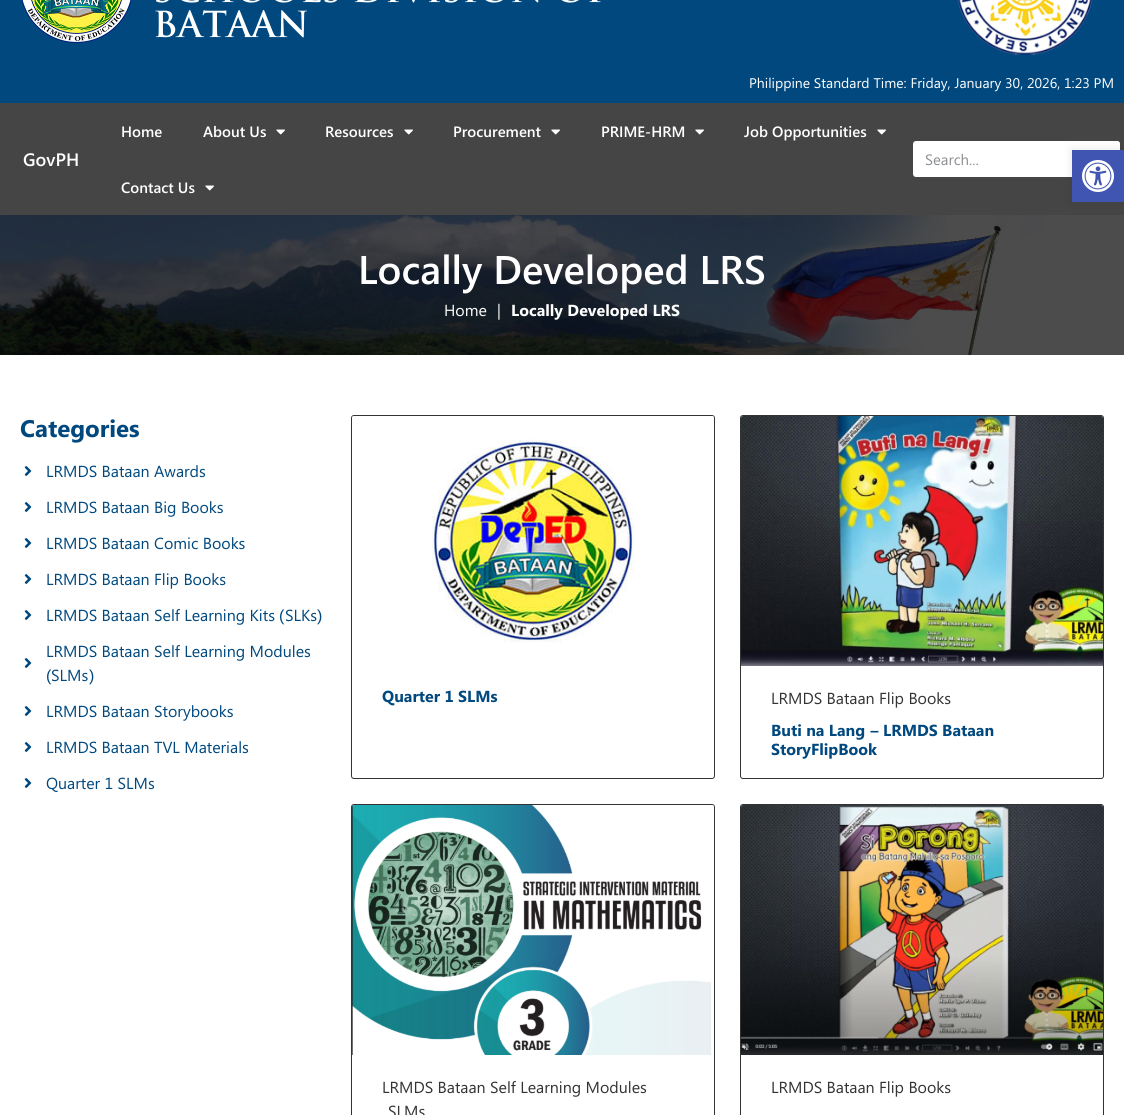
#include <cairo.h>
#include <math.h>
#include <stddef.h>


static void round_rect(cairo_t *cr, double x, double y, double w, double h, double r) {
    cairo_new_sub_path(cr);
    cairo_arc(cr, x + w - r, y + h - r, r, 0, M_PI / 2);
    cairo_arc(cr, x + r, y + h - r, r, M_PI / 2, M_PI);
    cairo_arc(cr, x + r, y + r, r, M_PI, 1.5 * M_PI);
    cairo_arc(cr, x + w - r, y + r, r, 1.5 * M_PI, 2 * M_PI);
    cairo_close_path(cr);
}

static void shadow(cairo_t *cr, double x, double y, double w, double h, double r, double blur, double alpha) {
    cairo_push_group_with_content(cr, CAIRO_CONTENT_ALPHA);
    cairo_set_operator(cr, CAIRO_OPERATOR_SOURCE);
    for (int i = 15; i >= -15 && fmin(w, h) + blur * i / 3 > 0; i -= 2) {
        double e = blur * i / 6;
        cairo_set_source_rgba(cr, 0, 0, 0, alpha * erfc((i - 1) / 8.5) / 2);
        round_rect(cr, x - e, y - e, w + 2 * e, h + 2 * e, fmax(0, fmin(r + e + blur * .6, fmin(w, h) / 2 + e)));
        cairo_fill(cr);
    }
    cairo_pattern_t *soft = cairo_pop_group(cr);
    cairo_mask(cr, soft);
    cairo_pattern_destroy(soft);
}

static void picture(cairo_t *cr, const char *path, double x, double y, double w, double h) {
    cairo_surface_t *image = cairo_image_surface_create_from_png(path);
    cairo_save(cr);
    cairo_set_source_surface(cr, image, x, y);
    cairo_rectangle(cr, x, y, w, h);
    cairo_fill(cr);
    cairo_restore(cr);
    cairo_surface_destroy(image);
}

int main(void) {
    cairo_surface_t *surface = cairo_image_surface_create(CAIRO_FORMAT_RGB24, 1124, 1115);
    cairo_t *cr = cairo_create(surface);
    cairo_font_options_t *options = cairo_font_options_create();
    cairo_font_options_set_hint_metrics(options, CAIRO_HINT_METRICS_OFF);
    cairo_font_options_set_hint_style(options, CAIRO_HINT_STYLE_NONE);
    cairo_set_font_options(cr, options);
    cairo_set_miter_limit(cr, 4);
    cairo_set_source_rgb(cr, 1, 1, 1);
    cairo_paint(cr);
    cairo_set_source_rgb(cr, 0, 0.282, 0.494);
    cairo_rectangle(cr, 0, 0, 1124, 103);
    cairo_fill(cr);
    picture(cr, "img1.png", 21, 0, 111, 43);
    picture(cr, "img2.png", 156, 0, 445, 3);
    picture(cr, "img3.png", 155, 9, 152, 29);
    picture(cr, "img4.png", 957, 0, 136, 56);
    cairo_select_font_face(cr, "Segoe UI", CAIRO_FONT_SLANT_NORMAL, CAIRO_FONT_WEIGHT_NORMAL);
    cairo_set_font_size(cr, 14);
    cairo_set_source_rgb(cr, 1, 1, 1);
    cairo_move_to(cr, 749, 88);
    cairo_show_text(cr, "Philippine Standard Time: Friday, January 30, 2026, 1:23 PM");
    cairo_set_source_rgb(cr, 0.271, 0.271, 0.271);
    cairo_rectangle(cr, 0, 103, 1124, 112);
    cairo_fill(cr);
    cairo_select_font_face(cr, "Segoe UI SemiBold", CAIRO_FONT_SLANT_NORMAL, CAIRO_FONT_WEIGHT_NORMAL);
    cairo_set_font_size(cr, 18);
    cairo_set_source_rgb(cr, 1, 1, 1);
    cairo_move_to(cr, 23, 166);
    cairo_show_text(cr, "GovPH");
    cairo_set_font_size(cr, 15);
    cairo_move_to(cr, 121, 137);
    cairo_show_text(cr, "Home");
    cairo_move_to(cr, 203, 137);
    cairo_show_text(cr, "About Us");
    picture(cr, "img5.png", 276, 129, 9, 6);
    cairo_move_to(cr, 325, 137);
    cairo_show_text(cr, "Resources");
    picture(cr, "img5.png", 404, 129, 9, 6);
    cairo_move_to(cr, 453, 137);
    cairo_show_text(cr, "Procurement");
    picture(cr, "img5.png", 551, 129, 9, 6);
    cairo_move_to(cr, 601, 137);
    cairo_show_text(cr, "PRIME-HRM");
    picture(cr, "img5.png", 695, 129, 9, 6);
    cairo_move_to(cr, 744, 137);
    cairo_show_text(cr, "Job Opportunities");
    picture(cr, "img5.png", 877, 129, 9, 6);
    cairo_move_to(cr, 121, 193);
    cairo_show_text(cr, "Contact Us");
    picture(cr, "img5.png", 205, 185, 9, 6);
    round_rect(cr, 913, 141, 207, 36, 3);
    cairo_fill(cr);
    cairo_select_font_face(cr, "Segoe UI", CAIRO_FONT_SLANT_NORMAL, CAIRO_FONT_WEIGHT_NORMAL);
    cairo_set_source_rgb(cr, 0.549, 0.561, 0.576);
    cairo_move_to(cr, 925, 165);
    cairo_show_text(cr, "Search...");
    cairo_set_source_rgb(cr, 1, 1, 1);
    cairo_new_path(cr);
    cairo_move_to(cr, 1077, 141);
    cairo_line_to(cr, 1117, 141);
    cairo_curve_to(cr, 1118.5, 141, 1120, 142.5, 1120, 144);
    cairo_line_to(cr, 1120, 174);
    cairo_curve_to(cr, 1120, 175.5, 1118.5, 177, 1117, 177);
    cairo_line_to(cr, 1077, 177);
    cairo_close_path(cr);
    cairo_fill(cr);
    picture(cr, "img7.png", 0, 215, 1124, 140);
    cairo_set_source_rgb(cr, 0, 0, 0);
    shadow(cr, 1072, 150, 52, 52, 0, 5, 0.1);
    cairo_set_source_rgb(cr, 0.251, 0.329, 0.698);
    cairo_rectangle(cr, 1072, 150, 52, 52);
    cairo_fill(cr);
    picture(cr, "img6.png", 1082, 160, 32, 32);
    cairo_select_font_face(cr, "Segoe UI SemiBold", CAIRO_FONT_SLANT_NORMAL, CAIRO_FONT_WEIGHT_NORMAL);
    cairo_set_font_size(cr, 40);
    cairo_set_source_rgb(cr, 1, 1, 1);
    cairo_move_to(cr, 358, 284);
    cairo_show_text(cr, "Locally Developed LRS");
    cairo_select_font_face(cr, "Segoe UI", CAIRO_FONT_SLANT_NORMAL, CAIRO_FONT_WEIGHT_NORMAL);
    cairo_set_font_size(cr, 16);
    cairo_move_to(cr, 444, 316);
    cairo_show_text(cr, "Home");
    cairo_move_to(cr, 497, 316);
    cairo_show_text(cr, "|");
    cairo_select_font_face(cr, "Segoe UI", CAIRO_FONT_SLANT_NORMAL, CAIRO_FONT_WEIGHT_BOLD);
    cairo_move_to(cr, 511, 316);
    cairo_show_text(cr, "Locally Developed LRS");
    cairo_set_font_size(cr, 24);
    cairo_set_source_rgb(cr, 0, 0.282, 0.494);
    cairo_move_to(cr, 20, 437);
    cairo_show_text(cr, "Categories");
    picture(cr, "img8.png", 24, 466, 8, 10);
    cairo_select_font_face(cr, "Segoe UI", CAIRO_FONT_SLANT_NORMAL, CAIRO_FONT_WEIGHT_NORMAL);
    cairo_set_font_size(cr, 16);
    cairo_move_to(cr, 46, 477);
    cairo_show_text(cr, "LRMDS Bataan Awards");
    picture(cr, "img8.png", 24, 502, 8, 10);
    cairo_move_to(cr, 46, 513);
    cairo_show_text(cr, "LRMDS Bataan Big Books");
    picture(cr, "img8.png", 24, 538, 8, 10);
    cairo_move_to(cr, 46, 549);
    cairo_show_text(cr, "LRMDS Bataan Comic Books");
    picture(cr, "img8.png", 24, 574, 8, 10);
    cairo_move_to(cr, 46, 585);
    cairo_show_text(cr, "LRMDS Bataan Flip Books");
    picture(cr, "img8.png", 24, 610, 8, 10);
    cairo_move_to(cr, 46, 621);
    cairo_show_text(cr, "LRMDS Bataan Self Learning Kits");
    cairo_select_font_face(cr, "Liberation Sans", CAIRO_FONT_SLANT_NORMAL, CAIRO_FONT_WEIGHT_NORMAL);
    cairo_move_to(cr, 279, 621);
    cairo_show_text(cr, "(");
    cairo_select_font_face(cr, "Segoe UI", CAIRO_FONT_SLANT_NORMAL, CAIRO_FONT_WEIGHT_NORMAL);
    cairo_move_to(cr, 285, 621);
    cairo_show_text(cr, "SLKs");
    cairo_select_font_face(cr, "Liberation Sans", CAIRO_FONT_SLANT_NORMAL, CAIRO_FONT_WEIGHT_NORMAL);
    cairo_move_to(cr, 317, 621);
    cairo_show_text(cr, ")");
    picture(cr, "img8.png", 24, 658, 8, 10);
    cairo_select_font_face(cr, "Segoe UI", CAIRO_FONT_SLANT_NORMAL, CAIRO_FONT_WEIGHT_NORMAL);
    cairo_move_to(cr, 46, 657);
    cairo_show_text(cr, "LRMDS Bataan Self Learning Modules");
    cairo_select_font_face(cr, "Liberation Sans", CAIRO_FONT_SLANT_NORMAL, CAIRO_FONT_WEIGHT_NORMAL);
    cairo_move_to(cr, 46, 681);
    cairo_show_text(cr, "(");
    cairo_select_font_face(cr, "Segoe UI", CAIRO_FONT_SLANT_NORMAL, CAIRO_FONT_WEIGHT_NORMAL);
    cairo_move_to(cr, 51, 681);
    cairo_show_text(cr, "SLMs");
    cairo_select_font_face(cr, "Liberation Sans", CAIRO_FONT_SLANT_NORMAL, CAIRO_FONT_WEIGHT_NORMAL);
    cairo_move_to(cr, 89, 681);
    cairo_show_text(cr, ")");
    picture(cr, "img8.png", 24, 706, 8, 10);
    cairo_select_font_face(cr, "Segoe UI", CAIRO_FONT_SLANT_NORMAL, CAIRO_FONT_WEIGHT_NORMAL);
    cairo_move_to(cr, 46, 717);
    cairo_show_text(cr, "LRMDS Bataan Storybooks");
    picture(cr, "img8.png", 24, 742, 8, 10);
    cairo_move_to(cr, 46, 753);
    cairo_show_text(cr, "LRMDS Bataan TVL Materials");
    picture(cr, "img8.png", 24, 778, 8, 10);
    cairo_move_to(cr, 46, 789);
    cairo_show_text(cr, "Quarter 1 SLMs");
    round_rect(cr, 351.5, 415.5, 363, 363, 2.5);
    cairo_set_source_rgb(cr, 0.2, 0.2, 0.2);
    cairo_set_line_width(cr, 1);
    cairo_stroke(cr);
    picture(cr, "img9.png", 352, 416, 362, 227);
    cairo_select_font_face(cr, "Segoe UI", CAIRO_FONT_SLANT_NORMAL, CAIRO_FONT_WEIGHT_BOLD);
    cairo_set_source_rgb(cr, 0, 0.282, 0.494);
    cairo_move_to(cr, 382, 702);
    cairo_show_text(cr, "Quarter 1 SLMs");
    round_rect(cr, 740.5, 415.5, 363, 363, 2.5);
    cairo_set_source_rgb(cr, 0.2, 0.2, 0.2);
    cairo_stroke(cr);
    picture(cr, "img10.png", 741, 416, 362, 250);
    cairo_select_font_face(cr, "Segoe UI", CAIRO_FONT_SLANT_NORMAL, CAIRO_FONT_WEIGHT_NORMAL);
    cairo_move_to(cr, 771, 704);
    cairo_show_text(cr, "LRMDS Bataan Flip Books");
    cairo_select_font_face(cr, "Segoe UI", CAIRO_FONT_SLANT_NORMAL, CAIRO_FONT_WEIGHT_BOLD);
    cairo_set_source_rgb(cr, 0, 0.282, 0.494);
    cairo_move_to(cr, 771, 736);
    cairo_show_text(cr, "Buti na Lang");
    cairo_select_font_face(cr, "Liberation Sans", CAIRO_FONT_SLANT_NORMAL, CAIRO_FONT_WEIGHT_BOLD);
    cairo_move_to(cr, 870, 736);
    cairo_show_text(cr, "–");
    cairo_select_font_face(cr, "Segoe UI", CAIRO_FONT_SLANT_NORMAL, CAIRO_FONT_WEIGHT_BOLD);
    cairo_move_to(cr, 883, 736);
    cairo_show_text(cr, "LRMDS Bataan");
    cairo_move_to(cr, 771, 755);
    cairo_show_text(cr, "StoryFlipBook");
    round_rect(cr, 351.5, 804.5, 363, 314, 2.5);
    cairo_set_source_rgb(cr, 0.2, 0.2, 0.2);
    cairo_stroke(cr);
    picture(cr, "img11.png", 352, 805, 362, 250);
    cairo_select_font_face(cr, "Segoe UI", CAIRO_FONT_SLANT_NORMAL, CAIRO_FONT_WEIGHT_NORMAL);
    cairo_move_to(cr, 382, 1093);
    cairo_show_text(cr, "LRMDS Bataan Self Learning Modules");
    cairo_move_to(cr, 388, 1117);
    cairo_show_text(cr, "SLMs");
    round_rect(cr, 740.5, 804.5, 363, 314, 2.5);
    cairo_stroke(cr);
    picture(cr, "img12.png", 741, 805, 362, 250);
    cairo_move_to(cr, 771, 1093);
    cairo_show_text(cr, "LRMDS Bataan Flip Books");
    cairo_surface_write_to_png(surface, "page.png");
    cairo_font_options_destroy(options);
    cairo_destroy(cr);
    cairo_surface_destroy(surface);
    return 0;
}
